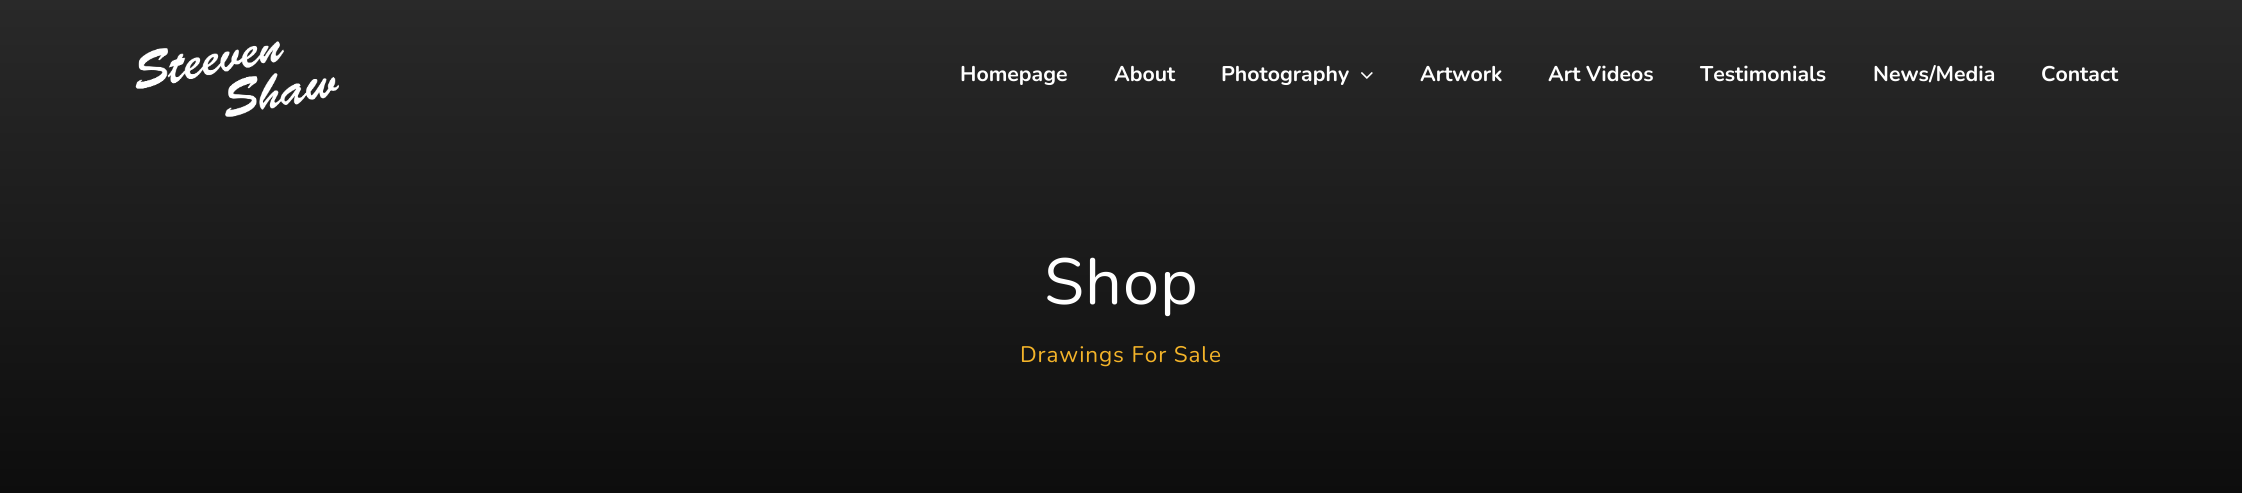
#include <cairo.h>
#include <math.h>
#include <stddef.h>


static void spaced_text(cairo_t *cr, double x, double y, const char *s, double letter, double word) {
    cairo_move_to(cr, x, y);
    while (*s) {
        char ch[5] = {0};
        int n = 0;
        do ch[n++] = *s++; while ((*s & 0xC0) == 0x80);
        cairo_show_text(cr, ch);
        cairo_rel_move_to(cr, letter + word * (*ch == ' '), 0);
    }
}

static void picture(cairo_t *cr, const char *path, double x, double y, double w, double h) {
    cairo_surface_t *image = cairo_image_surface_create_from_png(path);
    cairo_save(cr);
    cairo_set_source_surface(cr, image, x, y);
    cairo_rectangle(cr, x, y, w, h);
    cairo_fill(cr);
    cairo_restore(cr);
    cairo_surface_destroy(image);
}

int main(void) {
    cairo_surface_t *surface = cairo_image_surface_create(CAIRO_FORMAT_RGB24, 2242, 493);
    cairo_t *cr = cairo_create(surface);
    cairo_font_options_t *options = cairo_font_options_create();
    cairo_font_options_set_hint_metrics(options, CAIRO_HINT_METRICS_OFF);
    cairo_font_options_set_hint_style(options, CAIRO_HINT_STYLE_NONE);
    cairo_set_font_options(cr, options);
    cairo_set_miter_limit(cr, 4);
    cairo_pattern_t *gradient;
    cairo_set_source_rgb(cr, 1, 1, 1);
    cairo_paint(cr);
    gradient = cairo_pattern_create_linear(1121, 0, 1121, 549);
    cairo_pattern_add_color_stop_rgba(gradient, 0, 0.161, 0.161, 0.161, 1);
    cairo_pattern_add_color_stop_rgba(gradient, 1, 0.039, 0.039, 0.039, 1);
    cairo_set_source(cr, gradient);
    cairo_pattern_destroy(gradient);
    cairo_rectangle(cr, 0, 0, 2242, 493);
    cairo_fill(cr);
    picture(cr, "img1.png", 135, 41, 204, 76);
    cairo_select_font_face(cr, "Nunito", CAIRO_FONT_SLANT_NORMAL, CAIRO_FONT_WEIGHT_BOLD);
    cairo_set_font_size(cr, 21.25);
    cairo_set_source_rgb(cr, 1, 1, 1);
    cairo_move_to(cr, 960, 81);
    cairo_show_text(cr, "Homepage");
    cairo_move_to(cr, 1114, 81);
    cairo_show_text(cr, "About");
    cairo_move_to(cr, 1221, 81);
    cairo_show_text(cr, "Photography");
    picture(cr, "img2.png", 1361, 72, 12, 7);
    cairo_move_to(cr, 1420, 81);
    cairo_show_text(cr, "Artwork");
    cairo_move_to(cr, 1548, 81);
    cairo_show_text(cr, "Art Videos");
    cairo_move_to(cr, 1700, 81);
    cairo_show_text(cr, "Testimonials");
    cairo_move_to(cr, 1873, 81);
    cairo_show_text(cr, "News/Media");
    cairo_move_to(cr, 2041, 81);
    cairo_show_text(cr, "Contact");
    cairo_select_font_face(cr, "Nunito", CAIRO_FONT_SLANT_NORMAL, CAIRO_FONT_WEIGHT_NORMAL);
    cairo_set_font_size(cr, 65);
    spaced_text(cr, 1044, 304, "Shop", 1, 0);
    cairo_set_font_size(cr, 22.5);
    cairo_set_source_rgb(cr, 0.957, 0.706, 0.161);
    spaced_text(cr, 1020, 362, "Drawings For Sale", 0.9, 0);
    cairo_surface_write_to_png(surface, "page.png");
    cairo_font_options_destroy(options);
    cairo_destroy(cr);
    cairo_surface_destroy(surface);
    return 0;
}
